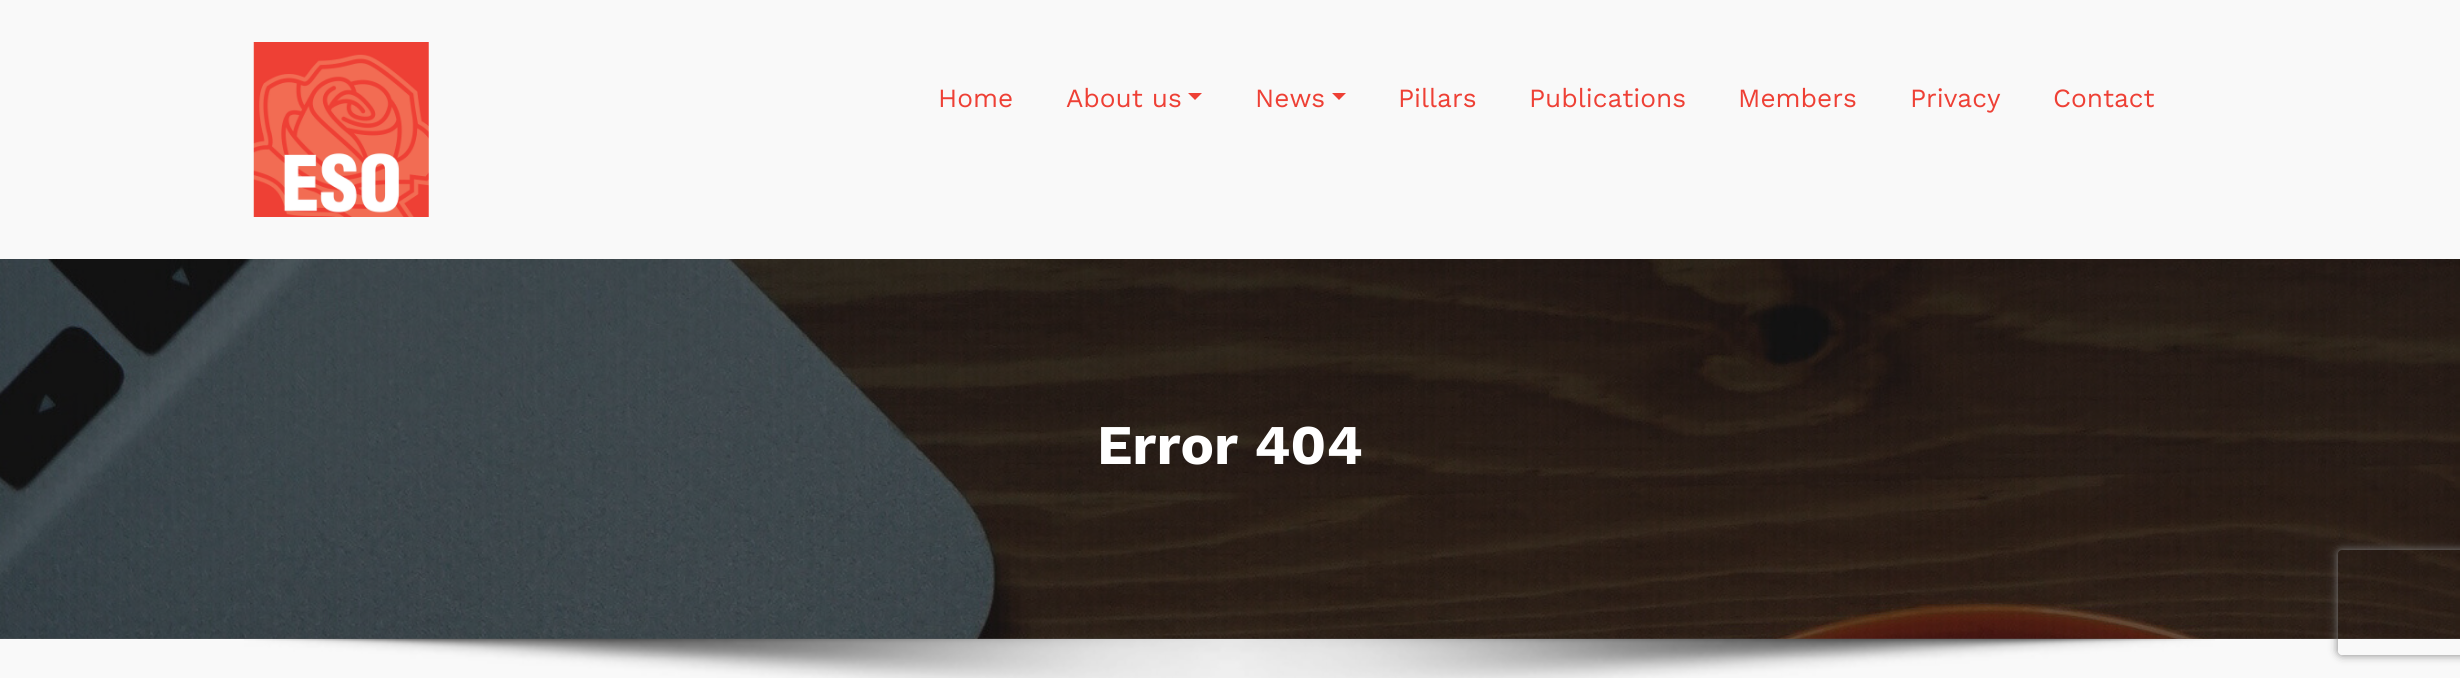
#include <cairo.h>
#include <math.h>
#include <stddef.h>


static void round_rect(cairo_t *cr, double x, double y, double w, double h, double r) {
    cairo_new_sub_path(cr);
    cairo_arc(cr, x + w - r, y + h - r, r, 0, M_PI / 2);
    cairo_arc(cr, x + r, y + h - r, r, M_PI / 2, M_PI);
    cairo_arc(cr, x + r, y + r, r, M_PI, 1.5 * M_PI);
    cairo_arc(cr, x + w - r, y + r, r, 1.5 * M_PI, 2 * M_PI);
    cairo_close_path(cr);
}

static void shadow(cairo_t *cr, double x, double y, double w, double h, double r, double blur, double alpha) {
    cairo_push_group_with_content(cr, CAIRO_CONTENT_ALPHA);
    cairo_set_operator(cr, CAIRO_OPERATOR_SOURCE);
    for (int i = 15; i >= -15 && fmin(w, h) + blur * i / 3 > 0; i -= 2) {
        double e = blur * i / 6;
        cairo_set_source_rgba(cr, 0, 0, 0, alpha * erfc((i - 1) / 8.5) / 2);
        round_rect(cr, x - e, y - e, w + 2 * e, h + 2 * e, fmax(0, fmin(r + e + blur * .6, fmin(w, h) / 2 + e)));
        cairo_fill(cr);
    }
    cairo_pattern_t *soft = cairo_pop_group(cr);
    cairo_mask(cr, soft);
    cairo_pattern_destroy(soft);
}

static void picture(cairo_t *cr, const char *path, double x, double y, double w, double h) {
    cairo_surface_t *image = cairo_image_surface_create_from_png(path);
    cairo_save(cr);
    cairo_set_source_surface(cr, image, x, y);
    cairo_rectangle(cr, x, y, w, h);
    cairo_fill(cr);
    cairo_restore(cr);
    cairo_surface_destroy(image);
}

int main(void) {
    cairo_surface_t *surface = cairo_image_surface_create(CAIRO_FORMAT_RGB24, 2460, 678);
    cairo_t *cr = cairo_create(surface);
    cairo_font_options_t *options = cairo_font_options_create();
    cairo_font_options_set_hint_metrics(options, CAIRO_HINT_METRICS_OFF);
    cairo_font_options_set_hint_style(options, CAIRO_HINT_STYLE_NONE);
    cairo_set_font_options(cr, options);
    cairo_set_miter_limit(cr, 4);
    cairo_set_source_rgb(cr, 0.973, 0.973, 0.973);
    cairo_paint(cr);
    picture(cr, "img1.png", 253, 42, 176, 175);
    cairo_select_font_face(cr, "Work Sans", CAIRO_FONT_SLANT_NORMAL, CAIRO_FONT_WEIGHT_NORMAL);
    cairo_set_font_size(cr, 26.25);
    cairo_set_source_rgb(cr, 0.933, 0.251, 0.208);
    cairo_move_to(cr, 938, 107);
    cairo_show_text(cr, "Home");
    cairo_move_to(cr, 1066, 107);
    cairo_show_text(cr, "About us");
    cairo_new_path(cr);
    cairo_move_to(cr, 1188, 93);
    cairo_line_to(cr, 1202, 93);
    cairo_line_to(cr, 1195, 100);
    cairo_close_path(cr);
    cairo_fill(cr);
    cairo_move_to(cr, 1255, 107);
    cairo_show_text(cr, "News");
    cairo_new_path(cr);
    cairo_move_to(cr, 1332, 93);
    cairo_line_to(cr, 1346, 93);
    cairo_line_to(cr, 1339, 100);
    cairo_close_path(cr);
    cairo_fill(cr);
    cairo_move_to(cr, 1398, 107);
    cairo_show_text(cr, "Pillars");
    cairo_move_to(cr, 1529, 107);
    cairo_show_text(cr, "Publications");
    cairo_move_to(cr, 1738, 107);
    cairo_show_text(cr, "Members");
    cairo_move_to(cr, 1910, 107);
    cairo_show_text(cr, "Privacy");
    cairo_move_to(cr, 2053, 107);
    cairo_show_text(cr, "Contact");
    picture(cr, "img3.png", 244, 638, 1971, 40);
    picture(cr, "img2.png", 0, 259, 2460, 380);
    cairo_set_source_rgba(cr, 0, 0, 0, 0.6);
    cairo_rectangle(cr, 0, 259, 2460, 380);
    cairo_fill(cr);
    cairo_select_font_face(cr, "Work Sans", CAIRO_FONT_SLANT_NORMAL, CAIRO_FONT_WEIGHT_BOLD);
    cairo_set_font_size(cr, 56);
    cairo_set_source_rgb(cr, 1, 1, 1);
    cairo_move_to(cr, 1097, 464);
    cairo_show_text(cr, "Error 404");
    cairo_save(cr);
    cairo_set_fill_rule(cr, CAIRO_FILL_RULE_EVEN_ODD);
    cairo_new_path(cr);
    cairo_move_to(cr, 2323, 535);
    cairo_line_to(cr, 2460, 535);
    cairo_line_to(cr, 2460, 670);
    cairo_line_to(cr, 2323, 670);
    cairo_close_path(cr);
    cairo_move_to(cr, 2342, 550);
    cairo_line_to(cr, 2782, 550);
    cairo_curve_to(cr, 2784, 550, 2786, 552, 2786, 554);
    cairo_line_to(cr, 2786, 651);
    cairo_curve_to(cr, 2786, 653, 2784, 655, 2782, 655);
    cairo_line_to(cr, 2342, 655);
    cairo_curve_to(cr, 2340, 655, 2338, 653, 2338, 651);
    cairo_line_to(cr, 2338, 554);
    cairo_curve_to(cr, 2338, 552, 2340, 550, 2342, 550);
    cairo_close_path(cr);
    cairo_clip(cr);
    cairo_set_source_rgb(cr, 0.502, 0.502, 0.502);
    shadow(cr, 2338, 550, 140, 105, 4, 4.5, 1);
    cairo_restore(cr);
    cairo_surface_write_to_png(surface, "page.png");
    cairo_font_options_destroy(options);
    cairo_destroy(cr);
    cairo_surface_destroy(surface);
    return 0;
}
